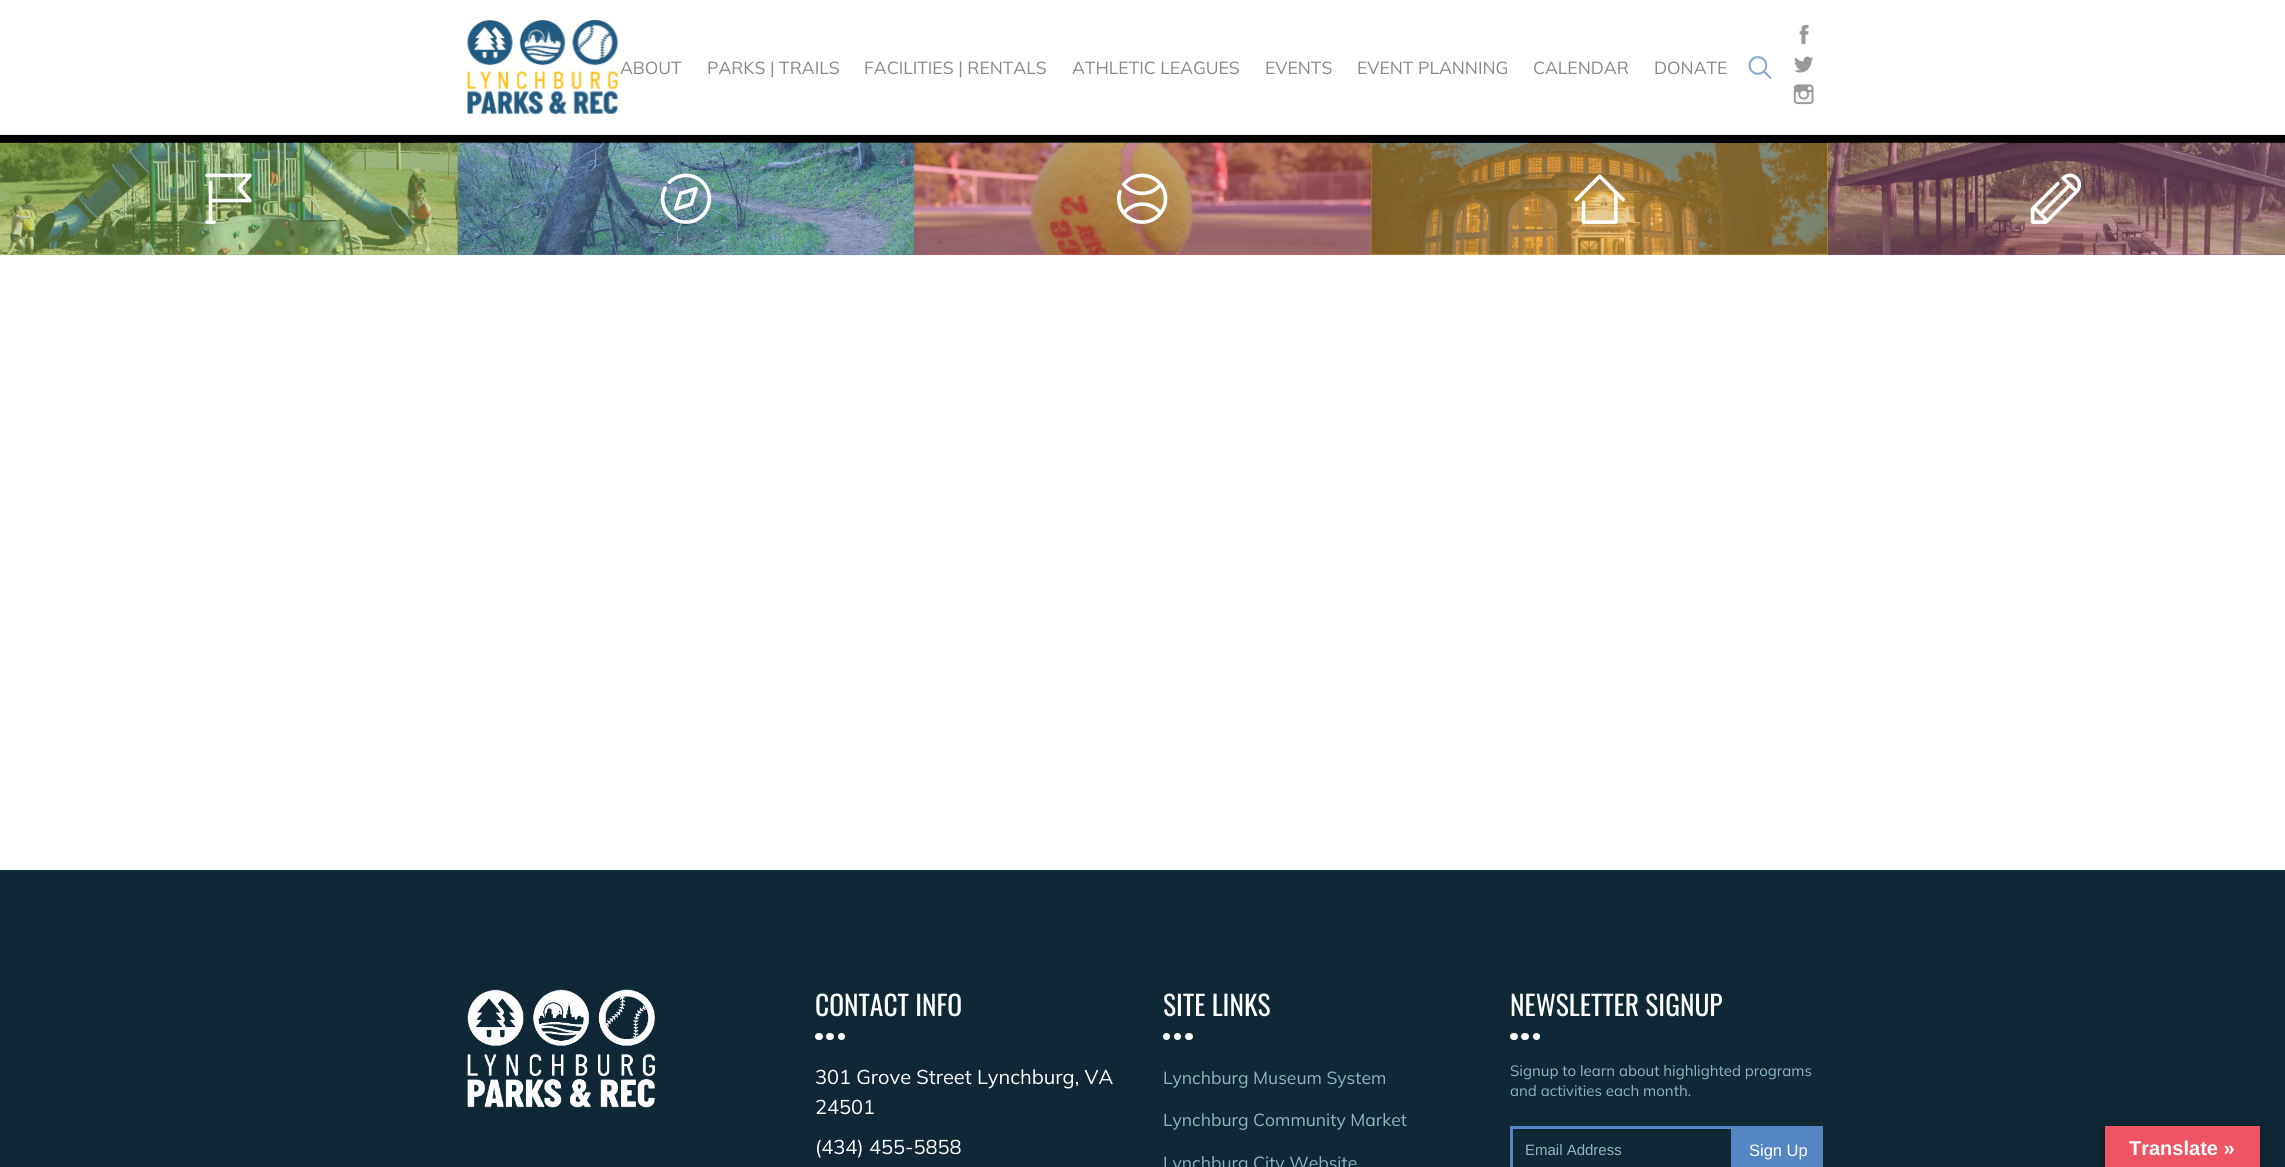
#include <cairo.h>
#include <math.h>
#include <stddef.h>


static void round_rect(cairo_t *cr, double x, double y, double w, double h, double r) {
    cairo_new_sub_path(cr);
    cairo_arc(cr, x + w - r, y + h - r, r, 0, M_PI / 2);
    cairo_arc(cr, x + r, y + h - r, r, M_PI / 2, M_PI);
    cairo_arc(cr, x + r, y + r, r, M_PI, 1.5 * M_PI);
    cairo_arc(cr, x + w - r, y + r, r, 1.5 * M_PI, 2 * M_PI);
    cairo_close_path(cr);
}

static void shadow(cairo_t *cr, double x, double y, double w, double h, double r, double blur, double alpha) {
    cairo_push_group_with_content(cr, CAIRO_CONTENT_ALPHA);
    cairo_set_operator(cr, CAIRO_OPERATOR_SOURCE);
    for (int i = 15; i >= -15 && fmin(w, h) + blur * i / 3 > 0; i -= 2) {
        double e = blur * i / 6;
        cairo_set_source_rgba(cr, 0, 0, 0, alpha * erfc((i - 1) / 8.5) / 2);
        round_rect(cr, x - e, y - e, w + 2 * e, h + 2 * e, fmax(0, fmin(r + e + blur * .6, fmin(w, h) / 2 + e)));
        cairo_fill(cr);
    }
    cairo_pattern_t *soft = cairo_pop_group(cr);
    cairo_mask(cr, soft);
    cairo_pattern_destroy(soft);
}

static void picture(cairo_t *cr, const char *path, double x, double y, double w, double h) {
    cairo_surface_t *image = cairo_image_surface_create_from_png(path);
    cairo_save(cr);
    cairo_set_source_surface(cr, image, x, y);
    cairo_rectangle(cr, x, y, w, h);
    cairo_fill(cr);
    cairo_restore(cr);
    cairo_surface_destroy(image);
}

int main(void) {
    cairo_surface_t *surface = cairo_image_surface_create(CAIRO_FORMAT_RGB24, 2285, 1167);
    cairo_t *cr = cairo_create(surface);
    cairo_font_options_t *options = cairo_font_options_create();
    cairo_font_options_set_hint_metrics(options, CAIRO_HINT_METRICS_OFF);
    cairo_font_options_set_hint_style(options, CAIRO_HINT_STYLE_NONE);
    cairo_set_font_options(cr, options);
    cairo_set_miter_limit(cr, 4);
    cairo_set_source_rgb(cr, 1, 1, 1);
    cairo_paint(cr);
    cairo_set_source_rgb(cr, 0.933, 0.933, 0.933);
    cairo_rectangle(cr, 0, 134, 2285, 1);
    cairo_fill(cr);
    picture(cr, "img1.png", 467, 20, 151, 94);
    cairo_select_font_face(cr, "Mulish", CAIRO_FONT_SLANT_NORMAL, CAIRO_FONT_WEIGHT_NORMAL);
    cairo_set_font_size(cr, 17.5);
    cairo_set_source_rgb(cr, 0.533, 0.533, 0.533);
    cairo_move_to(cr, 620, 74);
    cairo_show_text(cr, "ABOUT");
    cairo_move_to(cr, 707, 74);
    cairo_show_text(cr, "PARKS | TRAILS");
    cairo_move_to(cr, 864, 74);
    cairo_show_text(cr, "FACILITIES | RENTALS");
    cairo_move_to(cr, 1072, 74);
    cairo_show_text(cr, "ATHLETIC LEAGUES");
    cairo_move_to(cr, 1265, 74);
    cairo_show_text(cr, "EVENTS");
    cairo_move_to(cr, 1357, 74);
    cairo_show_text(cr, "EVENT PLANNING");
    cairo_move_to(cr, 1533, 74);
    cairo_show_text(cr, "CALENDAR");
    cairo_move_to(cr, 1654, 74);
    cairo_show_text(cr, "DONATE");
    picture(cr, "img2.png", 1748, 56, 24, 23);
    picture(cr, "img3.png", 1799, 24, 10, 21);
    picture(cr, "img4.png", 1794, 56, 20, 17);
    picture(cr, "img5.png", 1793, 84, 21, 21);
    cairo_set_source_rgb(cr, 0, 0, 0);
    cairo_rectangle(cr, 0, 135, 2285, 8);
    cairo_fill(cr);
    cairo_set_source_rgb(cr, 0.557, 0.757, 0.318);
    cairo_rectangle(cr, 0, 143, 458, 112);
    cairo_fill(cr);
    picture(cr, "img6.png", 0, 142, 458, 113);
    picture(cr, "img7.png", 205, 173, 47, 51);
    cairo_set_source_rgb(cr, 0.329, 0.525, 0.773);
    cairo_rectangle(cr, 458, 143, 456, 112);
    cairo_fill(cr);
    picture(cr, "img8.png", 457, 142, 457, 113);
    picture(cr, "img9.png", 660, 173, 52, 51);
    cairo_set_source_rgb(cr, 0.929, 0.333, 0.388);
    cairo_rectangle(cr, 914, 143, 457, 112);
    cairo_fill(cr);
    picture(cr, "img10.png", 913, 142, 459, 113);
    picture(cr, "img11.png", 1117, 173, 51, 51);
    cairo_set_source_rgb(cr, 0.957, 0.733, 0.267);
    cairo_rectangle(cr, 1371, 143, 457, 112);
    cairo_fill(cr);
    picture(cr, "img12.png", 1371, 142, 457, 113);
    picture(cr, "img13.png", 1574, 174, 51, 50);
    cairo_set_source_rgb(cr, 0.624, 0.333, 0.533);
    cairo_rectangle(cr, 1828, 143, 457, 112);
    cairo_fill(cr);
    picture(cr, "img14.png", 1827, 142, 458, 113);
    picture(cr, "img15.png", 2030, 173, 52, 51);
    cairo_set_source_rgb(cr, 0.059, 0.157, 0.212);
    cairo_rectangle(cr, 0, 870, 2285, 297);
    cairo_fill(cr);
    picture(cr, "img16.png", 467, 989, 188, 119);
    cairo_select_font_face(cr, "Oswald", CAIRO_FONT_SLANT_NORMAL, CAIRO_FONT_WEIGHT_NORMAL);
    cairo_set_font_size(cr, 27.5);
    cairo_set_source_rgb(cr, 1, 1, 1);
    cairo_move_to(cr, 815, 1016);
    cairo_show_text(cr, "CONTACT INFO");
    round_rect(cr, 815, 1033, 8, 7, 3.5);
    cairo_fill(cr);
    round_rect(cr, 826, 1033, 8, 7, 3.5);
    cairo_fill(cr);
    cairo_arc(cr, 841.5, 1036.5, 3.5, 0, 2 * M_PI);
    cairo_fill(cr);
    cairo_select_font_face(cr, "Mulish", CAIRO_FONT_SLANT_NORMAL, CAIRO_FONT_WEIGHT_NORMAL);
    cairo_set_font_size(cr, 20);
    cairo_move_to(cr, 815, 1084);
    cairo_show_text(cr, "301 Grove Street Lynchburg, VA");
    cairo_move_to(cr, 815, 1114);
    cairo_show_text(cr, "24501");
    cairo_move_to(cr, 815, 1154);
    cairo_show_text(cr, "(434) 455-5858");
    cairo_select_font_face(cr, "Oswald", CAIRO_FONT_SLANT_NORMAL, CAIRO_FONT_WEIGHT_NORMAL);
    cairo_set_font_size(cr, 27.5);
    cairo_move_to(cr, 1163, 1016);
    cairo_show_text(cr, "SITE LINKS");
    cairo_new_path(cr);
    cairo_arc(cr, 1166.5, 1036.5, 3.5, 0, 2 * M_PI);
    cairo_fill(cr);
    cairo_arc(cr, 1177.5, 1036.5, 3.5, 0, 2 * M_PI);
    cairo_fill(cr);
    round_rect(cr, 1185, 1033, 8, 7, 3.5);
    cairo_fill(cr);
    cairo_select_font_face(cr, "Mulish", CAIRO_FONT_SLANT_NORMAL, CAIRO_FONT_WEIGHT_NORMAL);
    cairo_set_font_size(cr, 17.5);
    cairo_set_source_rgb(cr, 0.557, 0.706, 0.788);
    cairo_move_to(cr, 1163, 1084);
    cairo_show_text(cr, "Lynchburg Museum System");
    cairo_move_to(cr, 1163, 1126);
    cairo_show_text(cr, "Lynchburg Community Market");
    cairo_move_to(cr, 1163, 1169);
    cairo_show_text(cr, "Lynchburg City Website");
    cairo_select_font_face(cr, "Oswald", CAIRO_FONT_SLANT_NORMAL, CAIRO_FONT_WEIGHT_NORMAL);
    cairo_set_font_size(cr, 27.5);
    cairo_set_source_rgb(cr, 1, 1, 1);
    cairo_move_to(cr, 1510, 1016);
    cairo_show_text(cr, "NEWSLETTER SIGNUP");
    round_rect(cr, 1510, 1033, 8, 7, 3.5);
    cairo_fill(cr);
    round_rect(cr, 1521, 1033, 8, 7, 3.5);
    cairo_fill(cr);
    cairo_arc(cr, 1536.5, 1036.5, 3.5, 0, 2 * M_PI);
    cairo_fill(cr);
    cairo_select_font_face(cr, "Mulish", CAIRO_FONT_SLANT_NORMAL, CAIRO_FONT_WEIGHT_NORMAL);
    cairo_set_font_size(cr, 15);
    cairo_set_source_rgb(cr, 0.557, 0.706, 0.788);
    cairo_move_to(cr, 1510, 1076);
    cairo_show_text(cr, "Signup to learn about highlighted programs");
    cairo_move_to(cr, 1510, 1096);
    cairo_show_text(cr, "and activities each month.");
    cairo_rectangle(cr, 1511.5, 1127.5, 221, 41);
    cairo_set_source_rgb(cr, 0.329, 0.525, 0.773);
    cairo_set_line_width(cr, 3);
    cairo_stroke(cr);
    cairo_select_font_face(cr, "Liberation Sans", CAIRO_FONT_SLANT_NORMAL, CAIRO_FONT_WEIGHT_NORMAL);
    cairo_set_source_rgb(cr, 0.557, 0.706, 0.788);
    cairo_move_to(cr, 1525, 1155);
    cairo_show_text(cr, "Email Address");
    cairo_set_source_rgb(cr, 0.329, 0.525, 0.773);
    cairo_rectangle(cr, 1734, 1126, 89, 41);
    cairo_fill(cr);
    cairo_set_font_size(cr, 16.5);
    cairo_set_source_rgb(cr, 1, 1, 1);
    cairo_move_to(cr, 1749, 1156);
    cairo_show_text(cr, "Sign Up");
    cairo_set_source_rgb(cr, 0, 0, 0);
    shadow(cr, 2105, 1126, 155, 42, 0, 5.5, 0.3);
    cairo_set_source_rgb(cr, 0.929, 0.333, 0.388);
    cairo_rectangle(cr, 2105, 1126, 155, 41);
    cairo_fill(cr);
    cairo_select_font_face(cr, "Liberation Sans", CAIRO_FONT_SLANT_NORMAL, CAIRO_FONT_WEIGHT_BOLD);
    cairo_set_font_size(cr, 20);
    cairo_set_source_rgb(cr, 1, 1, 1);
    cairo_move_to(cr, 2129, 1155);
    cairo_show_text(cr, "Translate »");
    cairo_surface_write_to_png(surface, "page.png");
    cairo_font_options_destroy(options);
    cairo_destroy(cr);
    cairo_surface_destroy(surface);
    return 0;
}
